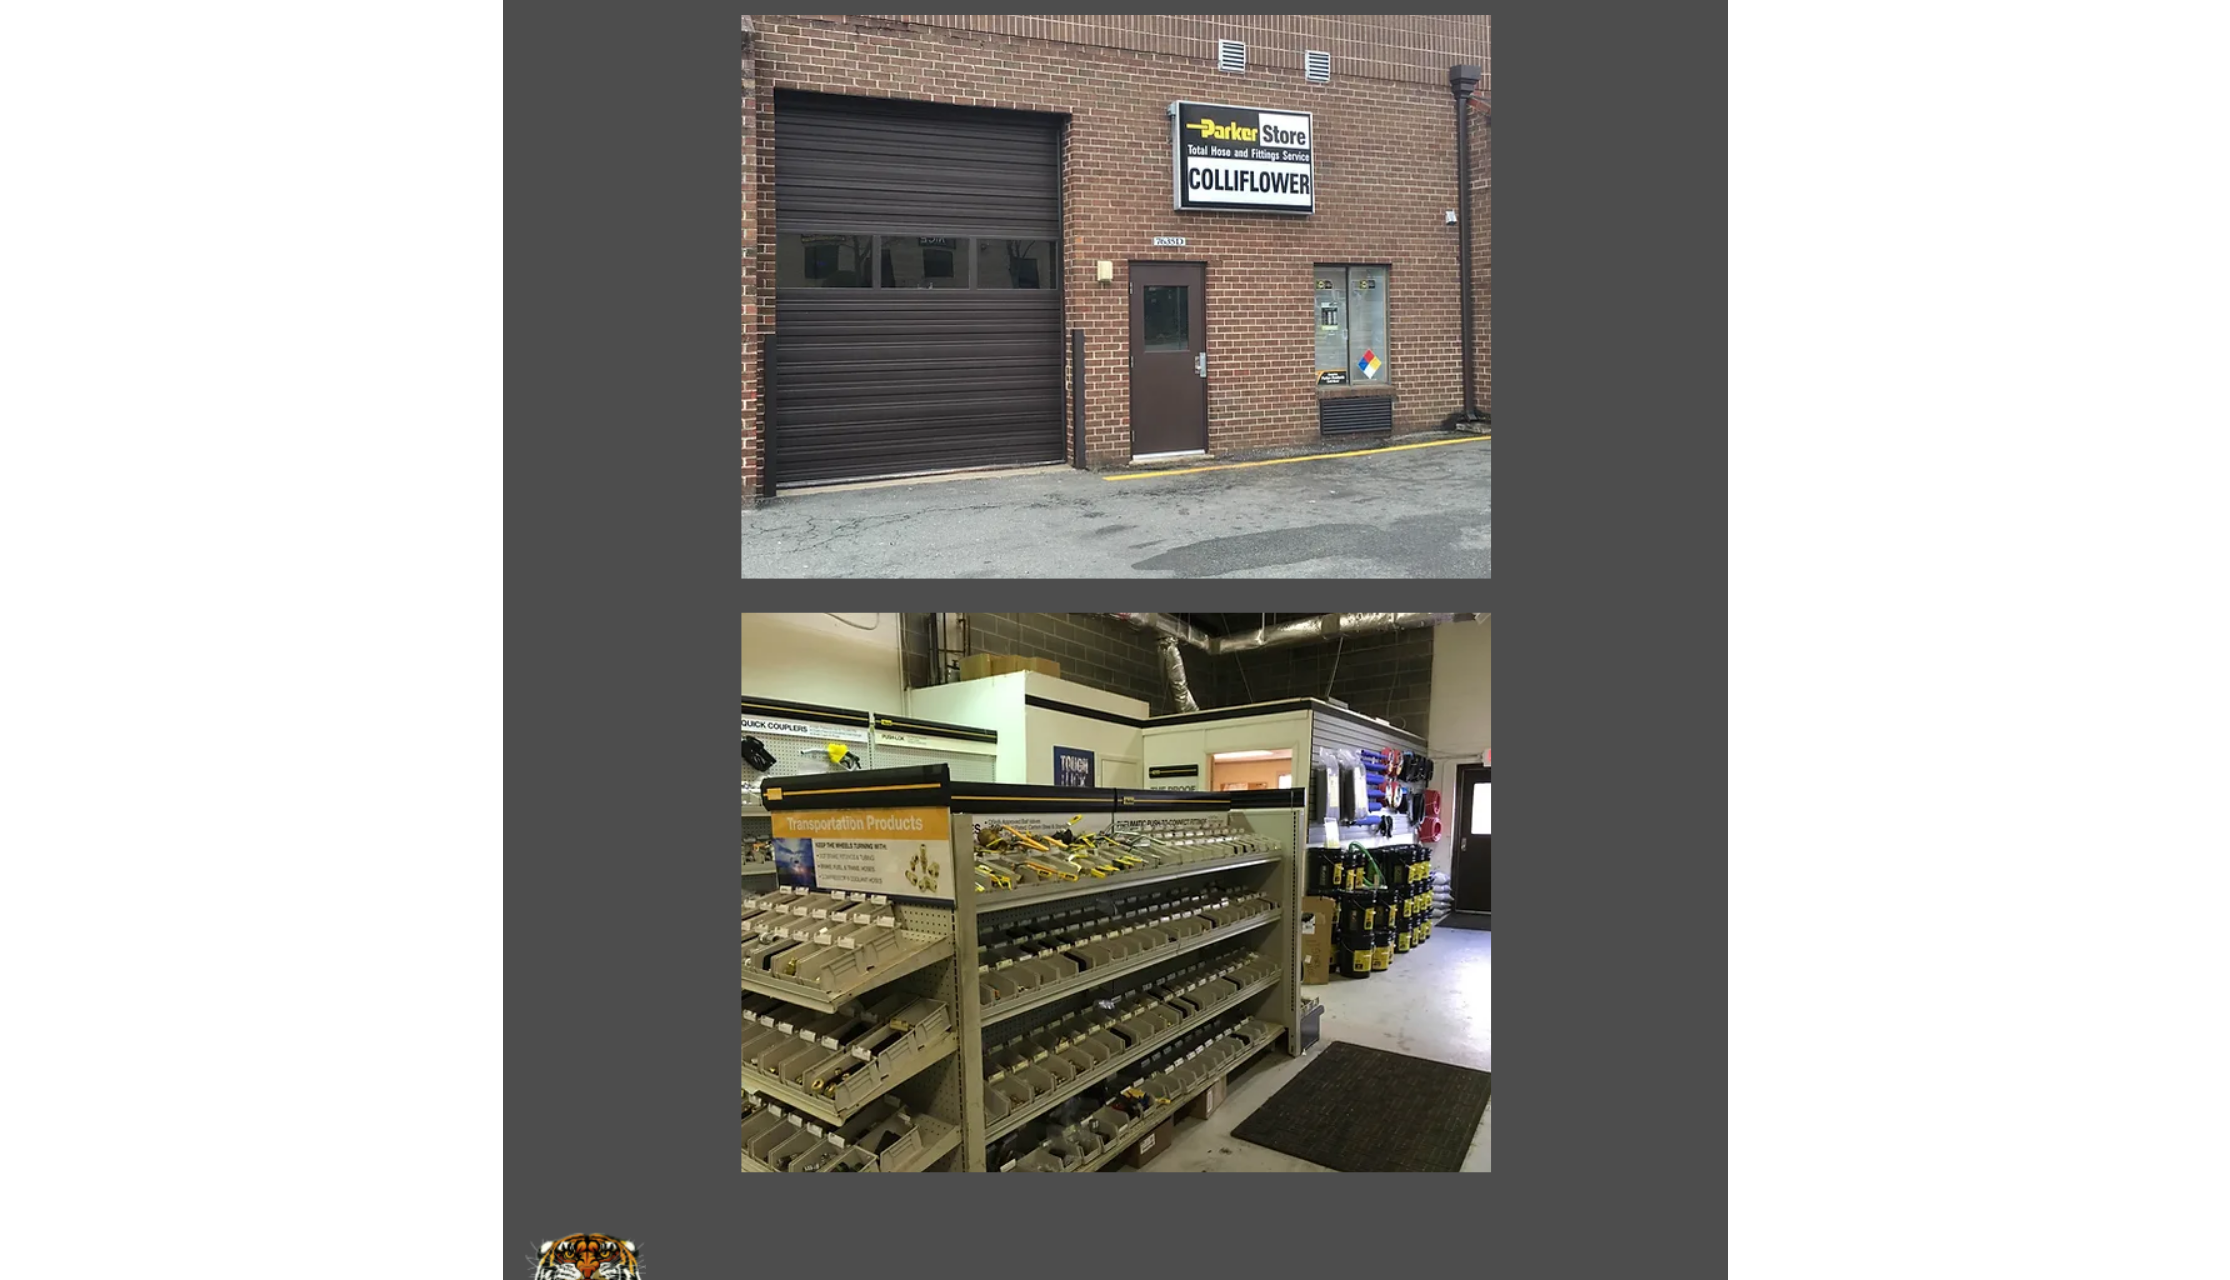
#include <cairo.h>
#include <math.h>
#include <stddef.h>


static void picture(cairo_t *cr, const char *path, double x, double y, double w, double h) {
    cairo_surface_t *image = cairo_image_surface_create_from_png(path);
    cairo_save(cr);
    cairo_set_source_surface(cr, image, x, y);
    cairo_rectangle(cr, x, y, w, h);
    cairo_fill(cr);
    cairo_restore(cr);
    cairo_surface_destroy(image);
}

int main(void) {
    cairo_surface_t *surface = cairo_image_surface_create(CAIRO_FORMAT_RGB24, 2230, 1280);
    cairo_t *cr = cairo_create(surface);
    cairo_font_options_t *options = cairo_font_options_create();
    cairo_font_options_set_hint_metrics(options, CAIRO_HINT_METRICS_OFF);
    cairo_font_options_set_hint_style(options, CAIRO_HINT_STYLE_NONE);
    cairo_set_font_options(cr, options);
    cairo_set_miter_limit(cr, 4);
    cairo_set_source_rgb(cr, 1, 1, 1);
    cairo_paint(cr);
    cairo_set_source_rgb(cr, 0.302, 0.302, 0.302);
    cairo_rectangle(cr, 503, 0, 1225, 1280);
    cairo_fill(cr);
    picture(cr, "img1.png", 741, 15, 751, 564);
    picture(cr, "img2.png", 741, 612, 751, 561);
    picture(cr, "img3.png", 525, 1232, 121, 48);
    cairo_surface_write_to_png(surface, "page.png");
    cairo_font_options_destroy(options);
    cairo_destroy(cr);
    cairo_surface_destroy(surface);
    return 0;
}
